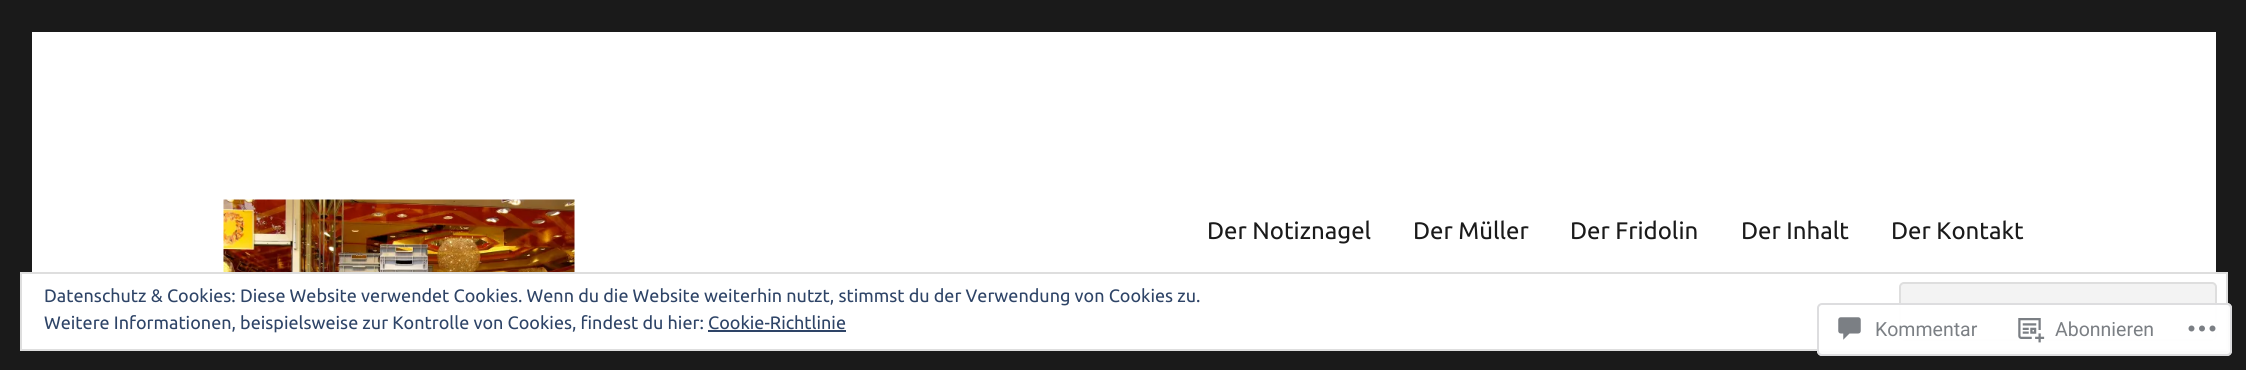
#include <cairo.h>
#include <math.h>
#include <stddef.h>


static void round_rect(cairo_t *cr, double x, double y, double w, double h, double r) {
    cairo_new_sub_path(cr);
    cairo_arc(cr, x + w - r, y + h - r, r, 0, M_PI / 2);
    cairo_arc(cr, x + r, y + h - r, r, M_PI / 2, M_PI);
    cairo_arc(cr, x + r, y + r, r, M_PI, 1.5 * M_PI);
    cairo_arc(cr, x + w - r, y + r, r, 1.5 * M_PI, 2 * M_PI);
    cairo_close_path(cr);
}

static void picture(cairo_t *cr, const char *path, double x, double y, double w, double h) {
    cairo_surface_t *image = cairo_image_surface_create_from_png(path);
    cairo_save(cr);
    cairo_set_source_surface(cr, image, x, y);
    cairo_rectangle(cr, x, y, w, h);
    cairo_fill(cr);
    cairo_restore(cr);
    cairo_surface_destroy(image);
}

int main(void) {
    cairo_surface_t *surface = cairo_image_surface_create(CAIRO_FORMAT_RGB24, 2246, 370);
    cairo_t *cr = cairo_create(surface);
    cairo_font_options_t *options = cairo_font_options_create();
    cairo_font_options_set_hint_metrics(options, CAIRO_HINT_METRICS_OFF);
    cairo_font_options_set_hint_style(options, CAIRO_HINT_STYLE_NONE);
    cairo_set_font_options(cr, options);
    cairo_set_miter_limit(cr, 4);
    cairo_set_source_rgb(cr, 0.102, 0.102, 0.102);
    cairo_paint(cr);
    cairo_set_source_rgb(cr, 1, 1, 1);
    cairo_rectangle(cr, 32, 32, 2184, 240);
    cairo_fill(cr);
    picture(cr, "img1.png", 223, 199, 352, 73);
    cairo_select_font_face(cr, "Ubuntu", CAIRO_FONT_SLANT_NORMAL, CAIRO_FONT_WEIGHT_NORMAL);
    cairo_set_font_size(cr, 24);
    cairo_set_source_rgb(cr, 0.102, 0.102, 0.102);
    cairo_move_to(cr, 1207, 239);
    cairo_show_text(cr, "Der Notiznagel");
    cairo_move_to(cr, 1413, 239);
    cairo_show_text(cr, "Der Müller");
    cairo_move_to(cr, 1570, 239);
    cairo_show_text(cr, "Der Fridolin");
    cairo_move_to(cr, 1741, 239);
    cairo_show_text(cr, "Der Inhalt");
    cairo_move_to(cr, 1891, 239);
    cairo_show_text(cr, "Der Kontakt");
    cairo_set_source_rgb(cr, 1, 1, 1);
    cairo_rectangle(cr, 21, 273, 2206, 77);
    cairo_fill_preserve(cr);
    cairo_set_source_rgb(cr, 0.871, 0.871, 0.871);
    cairo_stroke(cr);
    cairo_set_font_size(cr, 18);
    cairo_set_source_rgb(cr, 0.18, 0.267, 0.404);
    cairo_move_to(cr, 44, 302);
    cairo_show_text(cr, "Datenschutz & Cookies: Diese Website verwendet Cookies. Wenn du die Website weiterhin nutzt, stimmst du der Verwendung von Cookies zu.");
    cairo_set_source_rgb(cr, 0.953, 0.953, 0.953);
    round_rect(cr, 1900, 283, 316, 57, 4);
    cairo_fill_preserve(cr);
    cairo_set_source_rgb(cr, 0.871, 0.871, 0.871);
    cairo_stroke(cr);
    cairo_set_source_rgb(cr, 0.18, 0.267, 0.404);
    cairo_move_to(cr, 44, 329);
    cairo_show_text(cr, "Weitere Informationen, beispielsweise zur Kontrolle von Cookies, findest du hier: Cookie-Richtlinie");
    cairo_rectangle(cr, 708, 330, 138, 2);
    cairo_fill(cr);
    cairo_set_source_rgba(cr, 1, 1, 1, 0.98);
    round_rect(cr, 1817, 303, 415, 53, 5);
    cairo_fill(cr);
    round_rect(cr, 1818, 304, 413, 51, 4);
    cairo_set_source_rgba(cr, 0.863, 0.863, 0.871, 0.98);
    cairo_stroke(cr);
    picture(cr, "img2.png", 1838, 317, 23, 23);
    cairo_select_font_face(cr, "Roboto", CAIRO_FONT_SLANT_NORMAL, CAIRO_FONT_WEIGHT_NORMAL);
    cairo_set_font_size(cr, 19.5);
    cairo_set_source_rgb(cr, 0.482, 0.498, 0.518);
    cairo_move_to(cr, 1875, 336);
    cairo_show_text(cr, "Kommentar");
    picture(cr, "img3.png", 2018, 318, 27, 25);
    cairo_move_to(cr, 2055, 336);
    cairo_show_text(cr, "Abonnieren");
    picture(cr, "img4.png", 2188, 325, 28, 7);
    cairo_surface_write_to_png(surface, "page.png");
    cairo_font_options_destroy(options);
    cairo_destroy(cr);
    cairo_surface_destroy(surface);
    return 0;
}
